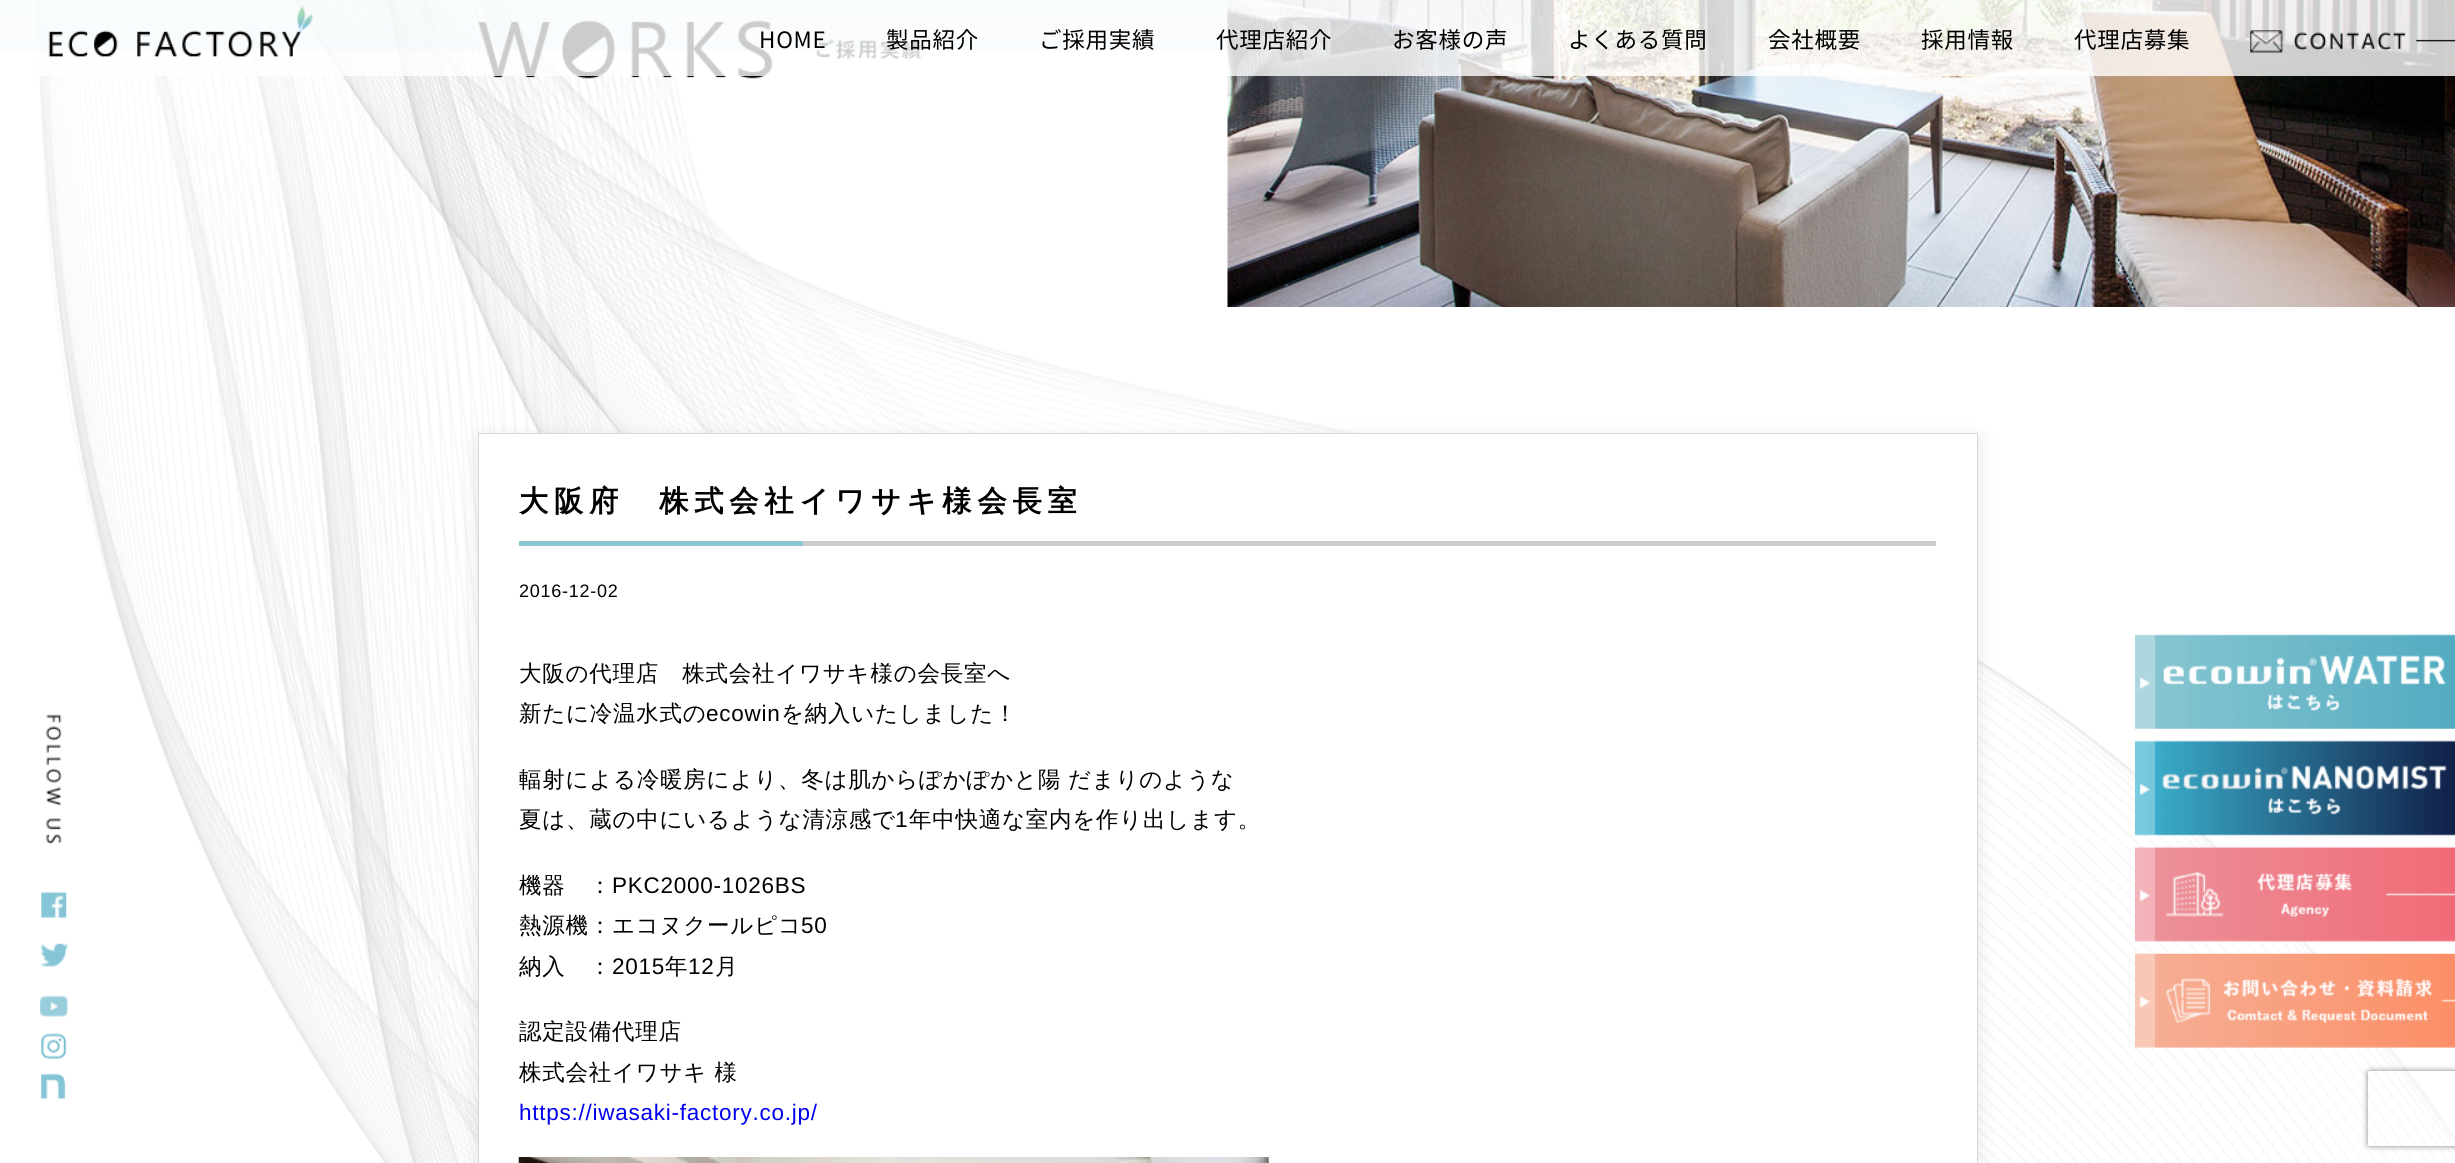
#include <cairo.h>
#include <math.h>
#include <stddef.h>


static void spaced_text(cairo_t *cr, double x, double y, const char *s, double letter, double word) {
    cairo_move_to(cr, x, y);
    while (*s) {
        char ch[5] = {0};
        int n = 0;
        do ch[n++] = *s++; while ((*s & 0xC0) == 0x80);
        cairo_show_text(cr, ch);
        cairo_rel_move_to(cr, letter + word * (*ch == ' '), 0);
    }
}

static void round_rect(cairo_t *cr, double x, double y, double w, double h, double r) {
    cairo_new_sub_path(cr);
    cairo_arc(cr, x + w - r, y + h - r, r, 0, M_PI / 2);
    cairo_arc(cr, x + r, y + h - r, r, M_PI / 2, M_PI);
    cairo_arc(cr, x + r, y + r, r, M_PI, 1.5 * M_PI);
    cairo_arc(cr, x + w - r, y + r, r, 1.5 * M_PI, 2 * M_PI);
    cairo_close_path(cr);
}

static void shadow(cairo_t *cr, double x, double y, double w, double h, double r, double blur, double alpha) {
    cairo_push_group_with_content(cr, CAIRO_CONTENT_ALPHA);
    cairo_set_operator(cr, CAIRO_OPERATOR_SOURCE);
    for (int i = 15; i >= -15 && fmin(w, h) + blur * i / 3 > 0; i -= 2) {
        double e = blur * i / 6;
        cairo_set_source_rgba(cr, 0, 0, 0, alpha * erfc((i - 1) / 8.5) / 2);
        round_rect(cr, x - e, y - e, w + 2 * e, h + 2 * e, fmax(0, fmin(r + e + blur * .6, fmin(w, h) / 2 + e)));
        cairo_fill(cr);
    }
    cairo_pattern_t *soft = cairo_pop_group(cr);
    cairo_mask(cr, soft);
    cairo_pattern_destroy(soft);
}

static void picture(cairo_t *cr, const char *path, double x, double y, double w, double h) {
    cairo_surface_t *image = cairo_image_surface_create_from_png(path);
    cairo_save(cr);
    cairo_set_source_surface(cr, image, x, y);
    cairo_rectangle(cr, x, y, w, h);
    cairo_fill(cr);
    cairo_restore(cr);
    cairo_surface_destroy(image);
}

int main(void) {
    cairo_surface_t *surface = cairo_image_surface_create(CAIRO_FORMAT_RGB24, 2455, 1163);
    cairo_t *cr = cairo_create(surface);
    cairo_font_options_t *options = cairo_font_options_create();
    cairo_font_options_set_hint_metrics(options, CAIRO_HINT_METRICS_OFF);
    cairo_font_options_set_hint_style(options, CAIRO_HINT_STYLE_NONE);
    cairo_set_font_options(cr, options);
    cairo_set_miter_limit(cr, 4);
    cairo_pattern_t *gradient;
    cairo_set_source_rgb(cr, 1, 1, 1);
    cairo_paint(cr);
    picture(cr, "img1.png", 36, 0, 639, 1163);
    picture(cr, "img10.png", 295, 0, 2160, 1163);
    gradient = cairo_pattern_create_linear(1228, 50, 1228, -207);
    cairo_pattern_add_color_stop_rgba(gradient, 0, 0.455, 0.737, 0.898, 0.2);
    cairo_pattern_add_color_stop_rgba(gradient, 1, 0.698, 0.867, 0.678, 0.2);
    cairo_set_source(cr, gradient);
    cairo_pattern_destroy(gradient);
    cairo_rectangle(cr, 0, 0, 1228, 50);
    cairo_fill(cr);
    picture(cr, "img11.png", 477, 20, 445, 59);
    picture(cr, "img12.png", 1227, 0, 1228, 307);
    cairo_set_source_rgba(cr, 1, 1, 1, 0.8);
    cairo_rectangle(cr, 0, 0, 2455, 76);
    cairo_fill(cr);
    picture(cr, "img2.png", 48, 6, 265, 51);
    cairo_select_font_face(cr, "Noto Sans JP", CAIRO_FONT_SLANT_NORMAL, CAIRO_FONT_WEIGHT_NORMAL);
    cairo_set_font_size(cr, 22.5);
    cairo_set_source_rgb(cr, 0, 0, 0);
    spaced_text(cr, 759, 48, "HOME", 0.75, 0);
    spaced_text(cr, 886, 48, "製品紹介", 0.75, 0);
    spaced_text(cr, 1039, 48, "ご採用実績", 0.75, 0);
    spaced_text(cr, 1216, 48, "代理店紹介", 0.75, 0);
    spaced_text(cr, 1392, 48, "お客様の声", 0.75, 0);
    spaced_text(cr, 1568, 48, "よくある質問", 0.75, 0);
    spaced_text(cr, 1768, 48, "会社概要", 0.75, 0);
    spaced_text(cr, 1921, 48, "採用情報", 0.75, 0);
    spaced_text(cr, 2074, 48, "代理店募集", 0.75, 0);
    picture(cr, "img3.png", 2250, 30, 205, 23);
    picture(cr, "img4.png", 46, 714, 16, 130);
    picture(cr, "img5.png", 41, 891, 26, 27);
    picture(cr, "img6.png", 40, 943, 28, 24);
    picture(cr, "img7.png", 40, 995, 28, 22);
    picture(cr, "img8.png", 41, 1033, 26, 26);
    picture(cr, "img9.png", 41, 1073, 25, 26);
    cairo_set_source_rgb(cr, 0, 0, 0);
    shadow(cr, 478, 439, 1500, 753, 0, 9.5, 0.1);
    cairo_set_source_rgb(cr, 1, 1, 1);
    cairo_rectangle(cr, 478.5, 433.5, 1499, 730);
    cairo_fill_preserve(cr);
    cairo_set_source_rgb(cr, 0.847, 0.847, 0.847);
    cairo_set_line_width(cr, 1);
    cairo_stroke(cr);
    cairo_set_source_rgb(cr, 0.8, 0.8, 0.8);
    cairo_rectangle(cr, 803, 541, 1133, 5);
    cairo_fill(cr);
    cairo_select_font_face(cr, "WenQuanYi Zen Hei", CAIRO_FONT_SLANT_NORMAL, CAIRO_FONT_WEIGHT_BOLD);
    cairo_set_font_size(cr, 29.25);
    cairo_set_source_rgb(cr, 0, 0, 0);
    spaced_text(cr, 519, 511, "大阪府　株式会社イワサキ様会長室", 5.8, 0);
    cairo_set_source_rgb(cr, 0.541, 0.78, 0.82);
    cairo_rectangle(cr, 519, 541, 284, 5);
    cairo_fill(cr);
    cairo_select_font_face(cr, "Liberation Sans", CAIRO_FONT_SLANT_NORMAL, CAIRO_FONT_WEIGHT_NORMAL);
    cairo_set_font_size(cr, 18);
    cairo_set_source_rgb(cr, 0, 0, 0);
    spaced_text(cr, 519, 597, "2016-12-02", 0.75, 0);
    cairo_select_font_face(cr, "WenQuanYi Zen Hei Medium", CAIRO_FONT_SLANT_NORMAL, CAIRO_FONT_WEIGHT_NORMAL);
    cairo_set_font_size(cr, 22.5);
    spaced_text(cr, 519, 681, "大阪の代理店　株式会社イワサキ様の会長室へ", 0.75, 0);
    spaced_text(cr, 519, 721, "新たに冷温水式の", 0.75, 0);
    cairo_select_font_face(cr, "Liberation Sans", CAIRO_FONT_SLANT_NORMAL, CAIRO_FONT_WEIGHT_NORMAL);
    spaced_text(cr, 706, 721, "ecowin", 0.75, 0);
    cairo_select_font_face(cr, "WenQuanYi Zen Hei Medium", CAIRO_FONT_SLANT_NORMAL, CAIRO_FONT_WEIGHT_NORMAL);
    spaced_text(cr, 781, 721, "を納入いたしました！", 0.75, 0);
    spaced_text(cr, 519, 787, "輻射による冷暖房により、冬は肌からぽかぽかと陽", 0.75, 0);
    spaced_text(cr, 1068, 787, "だまりのような", 0.75, 0);
    spaced_text(cr, 519, 827, "夏は、蔵の中にいるような清涼感で", 0.75, 0);
    cairo_select_font_face(cr, "Liberation Sans", CAIRO_FONT_SLANT_NORMAL, CAIRO_FONT_WEIGHT_NORMAL);
    spaced_text(cr, 895, 827, "1", 0.75, 0);
    cairo_select_font_face(cr, "WenQuanYi Zen Hei Medium", CAIRO_FONT_SLANT_NORMAL, CAIRO_FONT_WEIGHT_NORMAL);
    spaced_text(cr, 909, 827, "年中快適な室内を作り出します。", 0.75, 0);
    spaced_text(cr, 519, 893, "機器　：", 0.75, 0);
    cairo_select_font_face(cr, "Liberation Sans", CAIRO_FONT_SLANT_NORMAL, CAIRO_FONT_WEIGHT_NORMAL);
    spaced_text(cr, 612, 893, "PKC2000-1026BS", 0.75, 0);
    cairo_select_font_face(cr, "WenQuanYi Zen Hei Medium", CAIRO_FONT_SLANT_NORMAL, CAIRO_FONT_WEIGHT_NORMAL);
    spaced_text(cr, 519, 933, "熱源機：エコヌクールピコ", 0.75, 0);
    cairo_select_font_face(cr, "Liberation Sans", CAIRO_FONT_SLANT_NORMAL, CAIRO_FONT_WEIGHT_NORMAL);
    spaced_text(cr, 801, 933, "50", 0.75, 0);
    cairo_select_font_face(cr, "WenQuanYi Zen Hei Medium", CAIRO_FONT_SLANT_NORMAL, CAIRO_FONT_WEIGHT_NORMAL);
    spaced_text(cr, 519, 974, "納入　：", 0.75, 0);
    cairo_select_font_face(cr, "Liberation Sans", CAIRO_FONT_SLANT_NORMAL, CAIRO_FONT_WEIGHT_NORMAL);
    spaced_text(cr, 612, 974, "2015", 0.75, 0);
    cairo_select_font_face(cr, "WenQuanYi Zen Hei Medium", CAIRO_FONT_SLANT_NORMAL, CAIRO_FONT_WEIGHT_NORMAL);
    spaced_text(cr, 665, 974, "年", 0.75, 0);
    cairo_select_font_face(cr, "Liberation Sans", CAIRO_FONT_SLANT_NORMAL, CAIRO_FONT_WEIGHT_NORMAL);
    spaced_text(cr, 688, 974, "12", 0.75, 0);
    cairo_select_font_face(cr, "WenQuanYi Zen Hei Medium", CAIRO_FONT_SLANT_NORMAL, CAIRO_FONT_WEIGHT_NORMAL);
    spaced_text(cr, 715, 974, "月", 0.75, 0);
    spaced_text(cr, 519, 1039, "認定設備代理店", 0.75, 0);
    spaced_text(cr, 519, 1080, "株式会社イワサキ 様", 0.75, 0);
    cairo_select_font_face(cr, "Liberation Sans", CAIRO_FONT_SLANT_NORMAL, CAIRO_FONT_WEIGHT_NORMAL);
    cairo_set_source_rgb(cr, 0, 0, 0.933);
    spaced_text(cr, 519, 1120, "https://iwasaki-factory.co.jp/", 0.75, 0);
    picture(cr, "img13.png", 518, 1157, 751, 6);
    picture(cr, "img14.png", 2135, 634, 320, 95);
    picture(cr, "img15.png", 2135, 740, 320, 96);
    picture(cr, "img16.png", 2135, 846, 320, 96);
    picture(cr, "img17.png", 2135, 953, 320, 95);
    cairo_save(cr);
    cairo_set_fill_rule(cr, CAIRO_FILL_RULE_EVEN_ODD);
    cairo_new_path(cr);
    cairo_move_to(cr, 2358, 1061);
    cairo_line_to(cr, 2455, 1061);
    cairo_line_to(cr, 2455, 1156);
    cairo_line_to(cr, 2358, 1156);
    cairo_close_path(cr);
    cairo_move_to(cr, 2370.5, 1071);
    cairo_line_to(cr, 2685.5, 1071);
    cairo_curve_to(cr, 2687, 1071, 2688, 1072, 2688, 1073.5);
    cairo_line_to(cr, 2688, 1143.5);
    cairo_curve_to(cr, 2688, 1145, 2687, 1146, 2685.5, 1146);
    cairo_line_to(cr, 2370.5, 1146);
    cairo_curve_to(cr, 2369, 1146, 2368, 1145, 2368, 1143.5);
    cairo_line_to(cr, 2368, 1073.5);
    cairo_curve_to(cr, 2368, 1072, 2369, 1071, 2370.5, 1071);
    cairo_close_path(cr);
    cairo_clip(cr);
    cairo_set_source_rgb(cr, 0.502, 0.502, 0.502);
    shadow(cr, 2368, 1071, 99, 75, 2.5, 3, 1);
    cairo_restore(cr);
    cairo_surface_write_to_png(surface, "page.png");
    cairo_font_options_destroy(options);
    cairo_destroy(cr);
    cairo_surface_destroy(surface);
    return 0;
}
